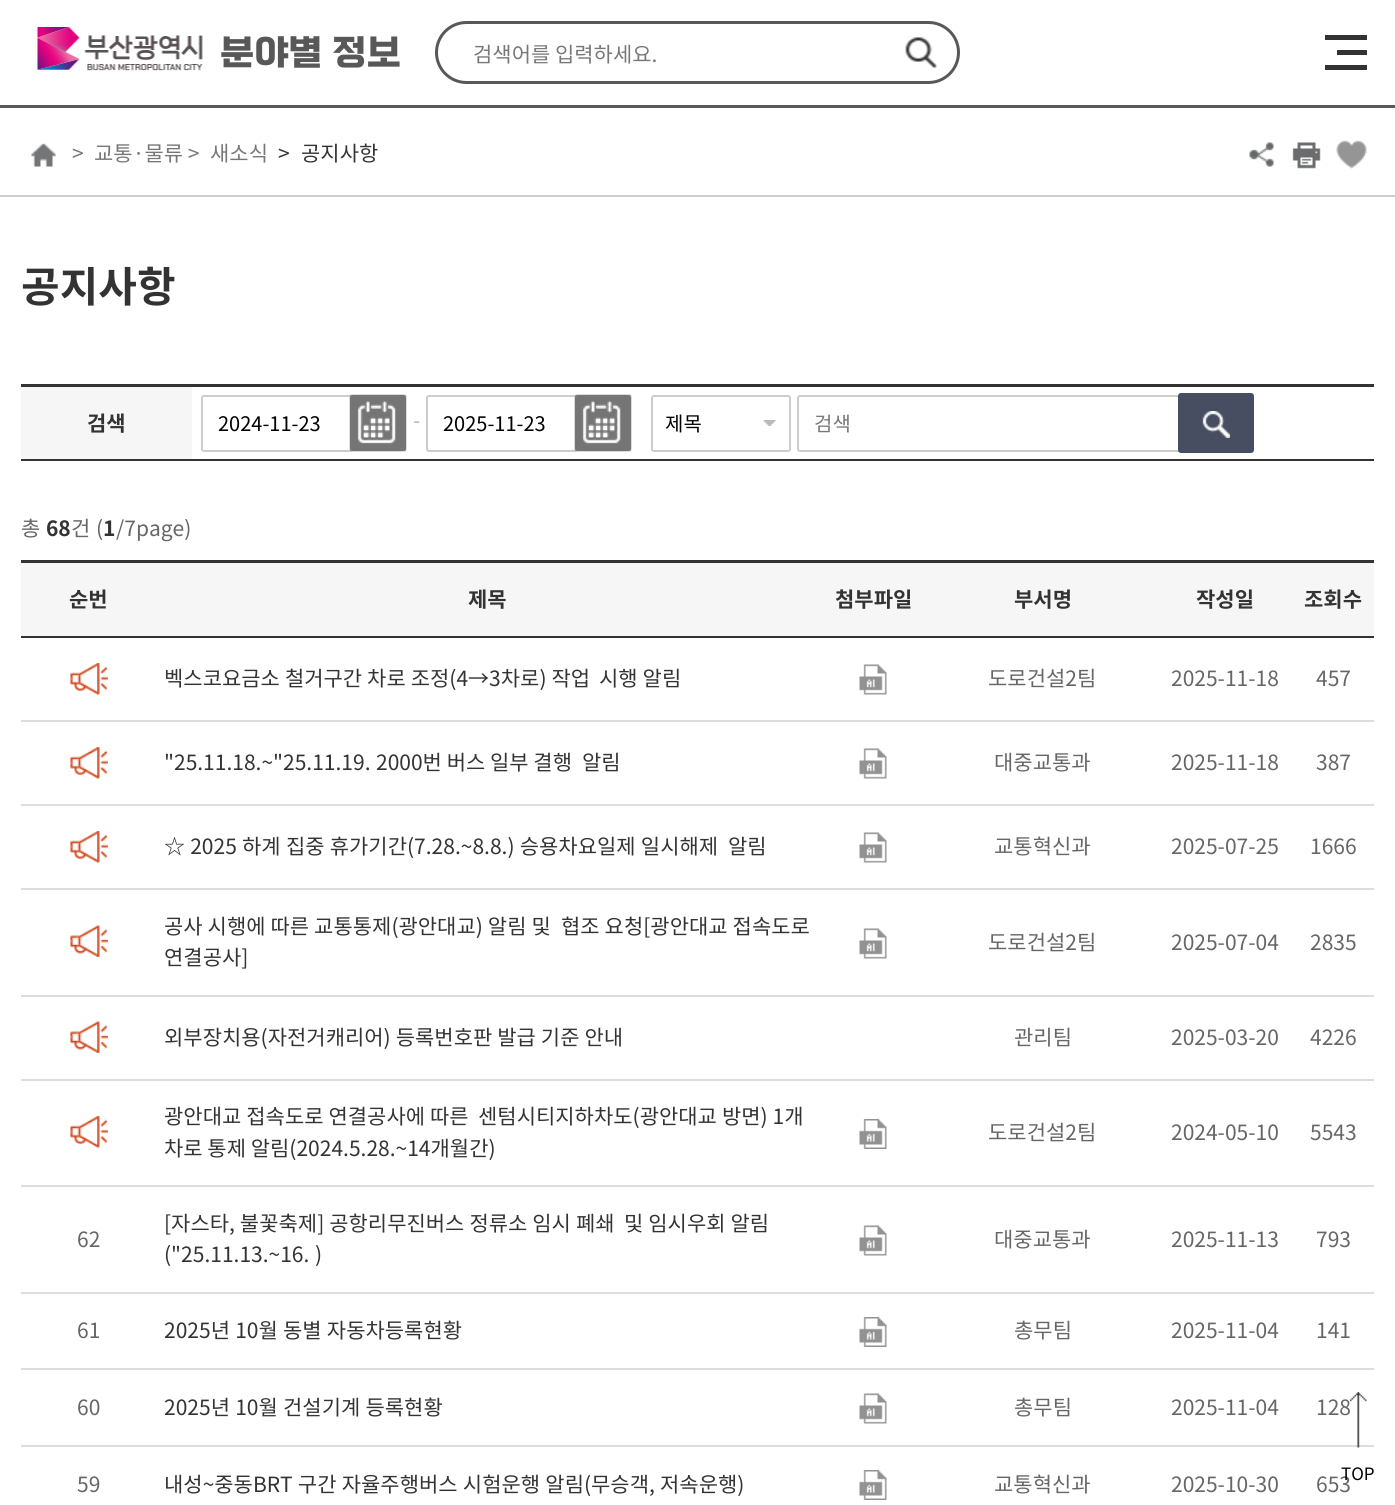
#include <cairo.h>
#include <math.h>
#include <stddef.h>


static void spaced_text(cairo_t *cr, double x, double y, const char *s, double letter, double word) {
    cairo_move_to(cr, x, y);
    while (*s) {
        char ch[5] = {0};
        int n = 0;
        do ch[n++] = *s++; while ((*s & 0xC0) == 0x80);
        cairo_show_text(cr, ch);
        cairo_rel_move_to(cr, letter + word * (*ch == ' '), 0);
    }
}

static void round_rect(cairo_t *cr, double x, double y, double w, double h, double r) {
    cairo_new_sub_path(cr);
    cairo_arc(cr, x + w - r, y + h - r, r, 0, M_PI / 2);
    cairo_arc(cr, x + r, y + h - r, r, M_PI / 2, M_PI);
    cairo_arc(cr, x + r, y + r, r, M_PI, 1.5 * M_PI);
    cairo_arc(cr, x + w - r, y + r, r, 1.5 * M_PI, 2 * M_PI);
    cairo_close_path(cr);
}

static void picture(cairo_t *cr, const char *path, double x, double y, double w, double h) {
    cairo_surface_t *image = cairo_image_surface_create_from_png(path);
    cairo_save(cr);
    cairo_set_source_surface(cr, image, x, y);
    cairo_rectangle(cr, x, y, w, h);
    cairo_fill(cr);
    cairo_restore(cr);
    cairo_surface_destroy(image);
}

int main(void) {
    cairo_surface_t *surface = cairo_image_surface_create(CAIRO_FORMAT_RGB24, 1395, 1505);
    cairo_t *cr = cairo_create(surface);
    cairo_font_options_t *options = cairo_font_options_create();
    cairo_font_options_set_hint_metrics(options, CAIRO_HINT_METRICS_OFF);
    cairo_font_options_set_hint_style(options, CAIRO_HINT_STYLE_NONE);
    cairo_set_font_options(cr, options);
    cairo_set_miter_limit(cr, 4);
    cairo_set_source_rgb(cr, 1, 1, 1);
    cairo_paint(cr);
    cairo_set_source_rgb(cr, 0.2, 0.2, 0.2);
    cairo_rectangle(cr, 1325, 35, 42, 5);
    cairo_fill(cr);
    cairo_rectangle(cr, 1337, 50, 30, 5);
    cairo_fill(cr);
    cairo_rectangle(cr, 1325, 65, 42, 5);
    cairo_fill(cr);
    cairo_set_source_rgb(cr, 0.345, 0.345, 0.345);
    cairo_rectangle(cr, 0, 105, 1395, 3);
    cairo_fill(cr);
    picture(cr, "img1.png", 37, 27, 166, 44);
    cairo_select_font_face(cr, "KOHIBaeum", CAIRO_FONT_SLANT_NORMAL, CAIRO_FONT_WEIGHT_NORMAL);
    cairo_set_font_size(cr, 33.5);
    cairo_move_to(cr, 220, 62);
    cairo_show_text(cr, "분야별 정보");
    round_rect(cr, 436.5, 22.5, 522, 60, 30);
    cairo_set_line_width(cr, 3);
    cairo_stroke(cr);
    cairo_select_font_face(cr, "Noto Sans KR", CAIRO_FONT_SLANT_NORMAL, CAIRO_FONT_WEIGHT_NORMAL);
    cairo_set_font_size(cr, 21);
    cairo_set_source_rgb(cr, 0.467, 0.467, 0.467);
    cairo_move_to(cr, 473, 62);
    cairo_show_text(cr, "검색어를 입력하세요.");
    picture(cr, "img2.png", 905, 37, 32, 31);
    cairo_set_source_rgb(cr, 0.8, 0.8, 0.8);
    cairo_rectangle(cr, 0, 195, 1395, 2);
    cairo_fill(cr);
    picture(cr, "img3.png", 31, 143, 25, 24);
    cairo_set_source_rgb(cr, 0.467, 0.467, 0.467);
    cairo_move_to(cr, 72, 161);
    cairo_show_text(cr, ">");
    cairo_move_to(cr, 94, 161);
    cairo_show_text(cr, "교통·물류 >");
    cairo_move_to(cr, 210, 161);
    cairo_show_text(cr, "새소식");
    cairo_set_source_rgb(cr, 0.2, 0.2, 0.2);
    cairo_move_to(cr, 278, 161);
    cairo_show_text(cr, ">");
    cairo_move_to(cr, 301, 161);
    cairo_show_text(cr, "공지사항");
    picture(cr, "img4.png", 1249, 142, 25, 25);
    picture(cr, "img5.png", 1292, 142, 29, 27);
    picture(cr, "img6.png", 1336, 140, 31, 29);
    cairo_select_font_face(cr, "Noto Sans KR", CAIRO_FONT_SLANT_NORMAL, CAIRO_FONT_WEIGHT_BOLD);
    cairo_set_font_size(cr, 42);
    cairo_move_to(cr, 21, 302);
    cairo_show_text(cr, "공지사항");
    cairo_rectangle(cr, 21, 384, 1353, 3);
    cairo_fill(cr);
    cairo_rectangle(cr, 21, 459, 1353, 2);
    cairo_fill(cr);
    cairo_set_source_rgb(cr, 0.961, 0.961, 0.961);
    cairo_rectangle(cr, 21, 387, 171, 72);
    cairo_fill(cr);
    cairo_set_font_size(cr, 21);
    cairo_set_source_rgb(cr, 0.2, 0.2, 0.2);
    cairo_move_to(cr, 87, 431);
    cairo_show_text(cr, "검색");
    round_rect(cr, 202, 396, 150, 55, 2);
    cairo_set_source_rgb(cr, 0.8, 0.8, 0.8);
    cairo_set_line_width(cr, 2);
    cairo_stroke(cr);
    cairo_select_font_face(cr, "Noto Sans KR", CAIRO_FONT_SLANT_NORMAL, CAIRO_FONT_WEIGHT_NORMAL);
    cairo_set_font_size(cr, 20);
    cairo_set_source_rgb(cr, 0, 0, 0);
    cairo_move_to(cr, 218, 431);
    cairo_show_text(cr, "2024-11-23");
    picture(cr, "img7.png", 349, 394, 58, 58);
    cairo_set_font_size(cr, 21);
    cairo_set_source_rgb(cr, 0.71, 0.71, 0.71);
    cairo_move_to(cr, 413, 428);
    cairo_show_text(cr, "-");
    round_rect(cr, 427, 396, 150, 55, 2);
    cairo_set_source_rgb(cr, 0.8, 0.8, 0.8);
    cairo_stroke(cr);
    cairo_set_font_size(cr, 20);
    cairo_set_source_rgb(cr, 0, 0, 0);
    cairo_move_to(cr, 443, 431);
    cairo_show_text(cr, "2025-11-23");
    picture(cr, "img7.png", 574, 394, 58, 58);
    picture(cr, "img8.png", 763, 420, 13, 6);
    round_rect(cr, 652, 396, 138, 55, 2);
    cairo_set_source_rgb(cr, 0.8, 0.8, 0.8);
    cairo_stroke(cr);
    cairo_set_source_rgb(cr, 0, 0, 0);
    cairo_move_to(cr, 665, 431);
    cairo_show_text(cr, "제목");
    round_rect(cr, 798, 396, 383, 55, 2);
    cairo_set_source_rgb(cr, 0.8, 0.8, 0.8);
    cairo_stroke(cr);
    cairo_set_source_rgb(cr, 0.467, 0.467, 0.467);
    cairo_move_to(cr, 814, 431);
    cairo_show_text(cr, "검색");
    cairo_set_source_rgb(cr, 0.278, 0.306, 0.38);
    round_rect(cr, 1178, 393, 76, 60, 3);
    cairo_fill(cr);
    picture(cr, "img9.png", 1202, 411, 28, 27);
    cairo_set_font_size(cr, 21);
    cairo_set_source_rgb(cr, 0.4, 0.4, 0.4);
    cairo_move_to(cr, 21, 536);
    cairo_show_text(cr, "총");
    cairo_select_font_face(cr, "Noto Sans KR", CAIRO_FONT_SLANT_NORMAL, CAIRO_FONT_WEIGHT_BOLD);
    cairo_set_source_rgb(cr, 0.2, 0.2, 0.2);
    cairo_move_to(cr, 46, 536);
    cairo_show_text(cr, "68");
    cairo_select_font_face(cr, "Noto Sans KR", CAIRO_FONT_SLANT_NORMAL, CAIRO_FONT_WEIGHT_NORMAL);
    cairo_set_source_rgb(cr, 0.4, 0.4, 0.4);
    spaced_text(cr, 71, 536, "건 (", 0, 1);
    cairo_select_font_face(cr, "Noto Sans KR", CAIRO_FONT_SLANT_NORMAL, CAIRO_FONT_WEIGHT_BOLD);
    cairo_set_source_rgb(cr, 0.2, 0.2, 0.2);
    cairo_move_to(cr, 103, 536);
    cairo_show_text(cr, "1");
    cairo_select_font_face(cr, "Noto Sans KR", CAIRO_FONT_SLANT_NORMAL, CAIRO_FONT_WEIGHT_NORMAL);
    cairo_set_source_rgb(cr, 0.4, 0.4, 0.4);
    cairo_move_to(cr, 116, 536);
    cairo_show_text(cr, "/7page)");
    cairo_set_source_rgb(cr, 0.2, 0.2, 0.2);
    cairo_rectangle(cr, 21, 560, 1353, 3);
    cairo_fill(cr);
    cairo_set_source_rgb(cr, 0.961, 0.961, 0.961);
    cairo_rectangle(cr, 21, 563, 1353, 73);
    cairo_fill(cr);
    cairo_set_source_rgb(cr, 0.2, 0.2, 0.2);
    cairo_rectangle(cr, 21, 636, 1353, 2);
    cairo_fill(cr);
    cairo_select_font_face(cr, "Noto Sans KR", CAIRO_FONT_SLANT_NORMAL, CAIRO_FONT_WEIGHT_BOLD);
    cairo_move_to(cr, 69, 607);
    cairo_show_text(cr, "순번");
    cairo_move_to(cr, 468, 607);
    cairo_show_text(cr, "제목");
    cairo_move_to(cr, 835, 607);
    cairo_show_text(cr, "첨부파일");
    cairo_move_to(cr, 1014, 607);
    cairo_show_text(cr, "부서명");
    cairo_move_to(cr, 1196, 607);
    cairo_show_text(cr, "작성일");
    cairo_move_to(cr, 1304, 607);
    cairo_show_text(cr, "조회수");
    cairo_set_source_rgb(cr, 0.867, 0.867, 0.867);
    cairo_rectangle(cr, 21, 720, 1353, 2);
    cairo_fill(cr);
    picture(cr, "img10.png", 70, 663, 38, 32);
    cairo_select_font_face(cr, "Noto Sans KR", CAIRO_FONT_SLANT_NORMAL, CAIRO_FONT_WEIGHT_NORMAL);
    cairo_set_source_rgb(cr, 0.2, 0.2, 0.2);
    spaced_text(cr, 164, 686, "벡스코요금소 철거구간 차로 조정(4→3차로) 작업", 0, 0.25);
    spaced_text(cr, 599, 686, "시행 알림", 0, 0.25);
    picture(cr, "img11.png", 859, 664, 28, 31);
    cairo_set_source_rgb(cr, 0.4, 0.4, 0.4);
    cairo_move_to(cr, 988, 686);
    cairo_show_text(cr, "도로건설2팀");
    cairo_move_to(cr, 1171, 686);
    cairo_show_text(cr, "2025-11-18");
    cairo_move_to(cr, 1316, 686);
    cairo_show_text(cr, "457");
    cairo_set_source_rgb(cr, 0.867, 0.867, 0.867);
    cairo_rectangle(cr, 21, 804, 1353, 2);
    cairo_fill(cr);
    picture(cr, "img10.png", 70, 747, 38, 32);
    cairo_set_source_rgb(cr, 0.2, 0.2, 0.2);
    cairo_move_to(cr, 164, 770);
    cairo_show_text(cr, "\"25.11.18.~\"25.11.19.");
    cairo_move_to(cr, 376, 770);
    cairo_show_text(cr, "2000번 버스 일부 결행");
    cairo_move_to(cr, 582, 770);
    cairo_show_text(cr, "알림");
    picture(cr, "img11.png", 859, 748, 28, 31);
    cairo_set_source_rgb(cr, 0.4, 0.4, 0.4);
    cairo_move_to(cr, 994, 770);
    cairo_show_text(cr, "대중교통과");
    cairo_move_to(cr, 1171, 770);
    cairo_show_text(cr, "2025-11-18");
    cairo_move_to(cr, 1316, 770);
    cairo_show_text(cr, "387");
    cairo_set_source_rgb(cr, 0.867, 0.867, 0.867);
    cairo_rectangle(cr, 21, 888, 1353, 2);
    cairo_fill(cr);
    picture(cr, "img10.png", 70, 831, 38, 32);
    cairo_set_source_rgb(cr, 0.2, 0.2, 0.2);
    spaced_text(cr, 164, 854, "☆ 2025 하계 집중 휴가기간(7.28.~8.8.) 승용차요일제 일시해제", 0, 0.5);
    spaced_text(cr, 728, 854, "알림", 0, 0.5);
    picture(cr, "img11.png", 859, 832, 28, 31);
    cairo_set_source_rgb(cr, 0.4, 0.4, 0.4);
    cairo_move_to(cr, 994, 854);
    cairo_show_text(cr, "교통혁신과");
    cairo_move_to(cr, 1171, 854);
    cairo_show_text(cr, "2025-07-25");
    cairo_move_to(cr, 1310, 854);
    cairo_show_text(cr, "1666");
    cairo_set_source_rgb(cr, 0.2, 0.2, 0.2);
    spaced_text(cr, 164, 934, "공사 시행에 따른 교통통제(광안대교) 알림 및", 0, 0.25);
    spaced_text(cr, 561, 934, "협조 요청[광안대교 접속도로", 0, 0.25);
    cairo_move_to(cr, 164, 965);
    cairo_show_text(cr, "연결공사]");
    cairo_set_source_rgb(cr, 0.867, 0.867, 0.867);
    cairo_rectangle(cr, 21, 995, 1353, 2);
    cairo_fill(cr);
    picture(cr, "img12.png", 70, 925, 38, 32);
    picture(cr, "img11.png", 859, 928, 28, 31);
    cairo_set_source_rgb(cr, 0.4, 0.4, 0.4);
    cairo_move_to(cr, 988, 950);
    cairo_show_text(cr, "도로건설2팀");
    cairo_move_to(cr, 1171, 950);
    cairo_show_text(cr, "2025-07-04");
    cairo_move_to(cr, 1310, 950);
    cairo_show_text(cr, "2835");
    cairo_set_source_rgb(cr, 0.867, 0.867, 0.867);
    cairo_rectangle(cr, 21, 1079, 1353, 2);
    cairo_fill(cr);
    picture(cr, "img12.png", 70, 1021, 38, 32);
    cairo_set_source_rgb(cr, 0.2, 0.2, 0.2);
    spaced_text(cr, 164, 1045, "외부장치용(자전거캐리어) 등록번호판 발급 기준 안내", 0, 0.25);
    cairo_set_source_rgb(cr, 0.4, 0.4, 0.4);
    cairo_move_to(cr, 1014, 1045);
    cairo_show_text(cr, "관리팀");
    cairo_move_to(cr, 1171, 1045);
    cairo_show_text(cr, "2025-03-20");
    cairo_move_to(cr, 1310, 1045);
    cairo_show_text(cr, "4226");
    cairo_set_source_rgb(cr, 0.2, 0.2, 0.2);
    spaced_text(cr, 164, 1124, "광안대교 접속도로 연결공사에 따른", 0, 0.25);
    spaced_text(cr, 478, 1124, "센텀시티지하차도(광안대교 방면) 1개", 0, 0.25);
    cairo_move_to(cr, 164, 1156);
    cairo_show_text(cr, "차로 통제 알림(2024.5.28.~14개월간)");
    cairo_set_source_rgb(cr, 0.867, 0.867, 0.867);
    cairo_rectangle(cr, 21, 1185, 1353, 2);
    cairo_fill(cr);
    picture(cr, "img10.png", 70, 1116, 38, 32);
    picture(cr, "img13.png", 859, 1119, 28, 30);
    cairo_set_source_rgb(cr, 0.4, 0.4, 0.4);
    cairo_move_to(cr, 988, 1140);
    cairo_show_text(cr, "도로건설2팀");
    cairo_move_to(cr, 1171, 1140);
    cairo_show_text(cr, "2024-05-10");
    cairo_move_to(cr, 1310, 1140);
    cairo_show_text(cr, "5543");
    cairo_set_source_rgb(cr, 0.867, 0.867, 0.867);
    cairo_rectangle(cr, 21, 1292, 1353, 2);
    cairo_fill(cr);
    cairo_set_source_rgb(cr, 0.4, 0.4, 0.4);
    cairo_move_to(cr, 77, 1247);
    cairo_show_text(cr, "62");
    cairo_set_source_rgb(cr, 0.2, 0.2, 0.2);
    spaced_text(cr, 164, 1231, "[자스타, 불꽃축제] 공항리무진버스 정류소 임시 폐쇄", 0, 0.25);
    spaced_text(cr, 624, 1231, "및 임시우회 알림", 0, 0.25);
    spaced_text(cr, 164, 1262, "(\"25.11.13.~16. )", 0, 1);
    picture(cr, "img11.png", 859, 1225, 28, 31);
    cairo_set_source_rgb(cr, 0.4, 0.4, 0.4);
    cairo_move_to(cr, 994, 1247);
    cairo_show_text(cr, "대중교통과");
    cairo_move_to(cr, 1171, 1247);
    cairo_show_text(cr, "2025-11-13");
    cairo_move_to(cr, 1316, 1247);
    cairo_show_text(cr, "793");
    cairo_set_source_rgb(cr, 0.867, 0.867, 0.867);
    cairo_rectangle(cr, 21, 1368, 1353, 2);
    cairo_fill(cr);
    cairo_set_source_rgb(cr, 0.4, 0.4, 0.4);
    cairo_move_to(cr, 77, 1338);
    cairo_show_text(cr, "61");
    cairo_set_source_rgb(cr, 0.2, 0.2, 0.2);
    spaced_text(cr, 164, 1338, "2025년 10월 동별 자동차등록현황", 0, 0.5);
    picture(cr, "img13.png", 859, 1317, 28, 30);
    cairo_set_source_rgb(cr, 0.4, 0.4, 0.4);
    cairo_move_to(cr, 1014, 1338);
    cairo_show_text(cr, "총무팀");
    cairo_move_to(cr, 1171, 1338);
    cairo_show_text(cr, "2025-11-04");
    cairo_move_to(cr, 1316, 1338);
    cairo_show_text(cr, "141");
    cairo_set_source_rgb(cr, 0.867, 0.867, 0.867);
    cairo_rectangle(cr, 21, 1445, 1353, 2);
    cairo_fill(cr);
    cairo_set_source_rgb(cr, 0.4, 0.4, 0.4);
    cairo_move_to(cr, 77, 1415);
    cairo_show_text(cr, "60");
    cairo_set_source_rgb(cr, 0.2, 0.2, 0.2);
    spaced_text(cr, 164, 1415, "2025년 10월 건설기계 등록현황", 0, 0.5);
    picture(cr, "img11.png", 859, 1393, 28, 31);
    cairo_set_source_rgb(cr, 0.4, 0.4, 0.4);
    cairo_move_to(cr, 1014, 1415);
    cairo_show_text(cr, "총무팀");
    cairo_move_to(cr, 1171, 1415);
    cairo_show_text(cr, "2025-11-04");
    cairo_move_to(cr, 1316, 1415);
    cairo_show_text(cr, "128");
    cairo_move_to(cr, 77, 1492);
    cairo_show_text(cr, "59");
    cairo_set_source_rgb(cr, 0.2, 0.2, 0.2);
    spaced_text(cr, 164, 1492, "내성~중동BRT 구간 자율주행버스 시험운행 알림(무승객, 저속운행)", 0, 0.5);
    picture(cr, "img13.png", 859, 1470, 28, 30);
    cairo_set_source_rgb(cr, 0.4, 0.4, 0.4);
    cairo_move_to(cr, 994, 1492);
    cairo_show_text(cr, "교통혁신과");
    cairo_move_to(cr, 1171, 1492);
    cairo_show_text(cr, "2025-10-30");
    cairo_move_to(cr, 1316, 1492);
    cairo_show_text(cr, "653");
    picture(cr, "img14.png", 1349, 1392, 18, 56);
    cairo_set_font_size(cr, 17);
    cairo_set_source_rgb(cr, 0, 0, 0);
    cairo_move_to(cr, 1341, 1480);
    cairo_show_text(cr, "TOP");
    cairo_surface_write_to_png(surface, "page.png");
    cairo_font_options_destroy(options);
    cairo_destroy(cr);
    cairo_surface_destroy(surface);
    return 0;
}
